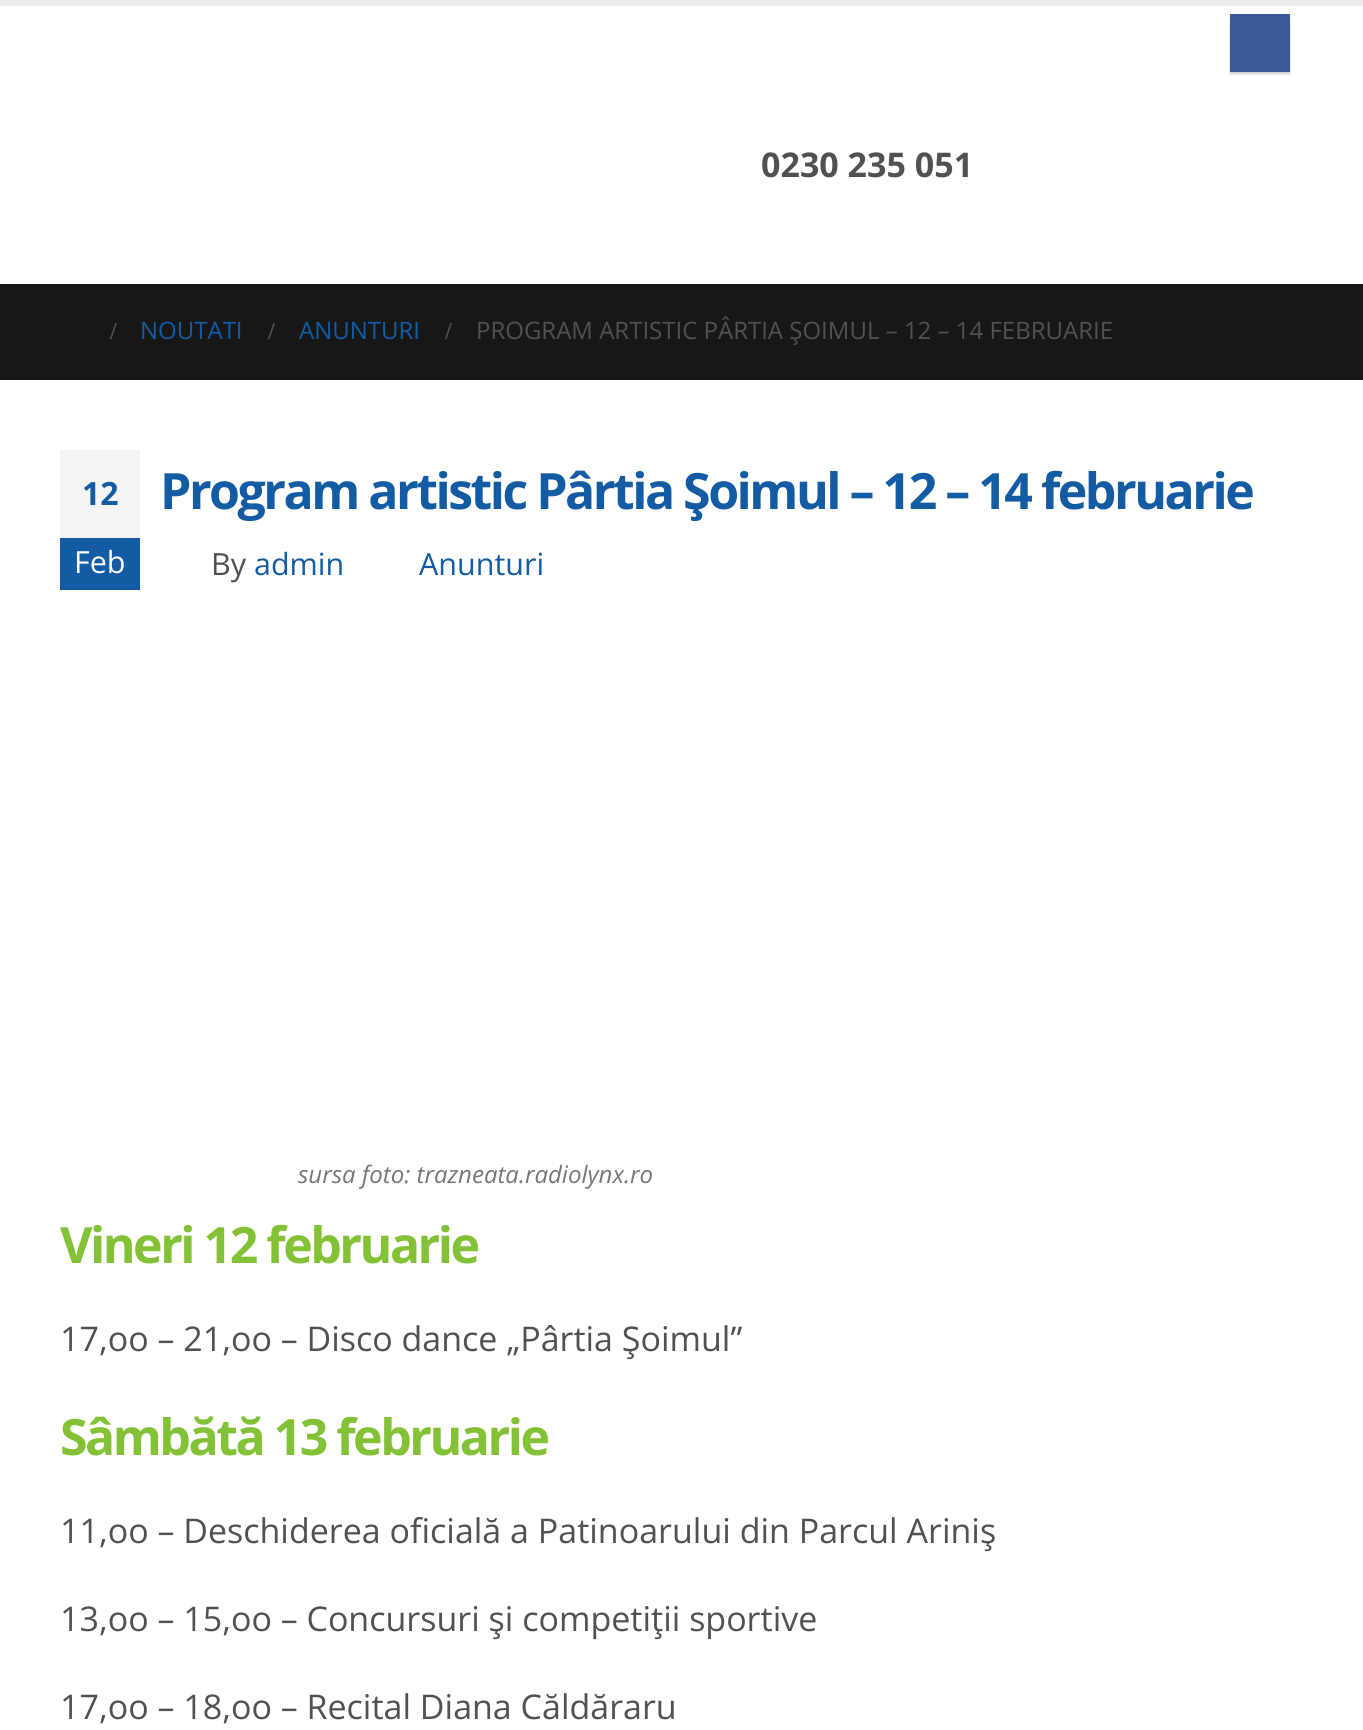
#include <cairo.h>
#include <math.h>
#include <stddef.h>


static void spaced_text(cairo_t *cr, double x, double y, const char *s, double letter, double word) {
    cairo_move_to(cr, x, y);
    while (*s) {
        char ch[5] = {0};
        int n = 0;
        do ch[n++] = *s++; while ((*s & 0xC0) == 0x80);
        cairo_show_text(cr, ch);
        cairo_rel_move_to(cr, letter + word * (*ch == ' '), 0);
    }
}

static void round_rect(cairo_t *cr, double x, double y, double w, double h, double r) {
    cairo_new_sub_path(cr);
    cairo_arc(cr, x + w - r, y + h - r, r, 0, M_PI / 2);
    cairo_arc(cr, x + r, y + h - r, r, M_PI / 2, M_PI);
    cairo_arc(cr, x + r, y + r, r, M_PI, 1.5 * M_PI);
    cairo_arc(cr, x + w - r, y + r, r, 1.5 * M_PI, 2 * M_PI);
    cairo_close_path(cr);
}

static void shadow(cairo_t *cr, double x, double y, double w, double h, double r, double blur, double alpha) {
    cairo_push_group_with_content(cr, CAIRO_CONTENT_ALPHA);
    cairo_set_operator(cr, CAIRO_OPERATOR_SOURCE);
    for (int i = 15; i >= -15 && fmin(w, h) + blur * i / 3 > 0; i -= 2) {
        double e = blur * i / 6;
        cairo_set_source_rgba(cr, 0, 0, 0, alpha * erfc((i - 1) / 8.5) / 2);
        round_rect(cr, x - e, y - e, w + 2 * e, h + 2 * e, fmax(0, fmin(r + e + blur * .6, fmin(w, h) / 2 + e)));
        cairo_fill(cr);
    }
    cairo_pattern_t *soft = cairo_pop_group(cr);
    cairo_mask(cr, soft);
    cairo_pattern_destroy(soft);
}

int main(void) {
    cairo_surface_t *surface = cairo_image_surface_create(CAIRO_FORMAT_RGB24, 1363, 1730);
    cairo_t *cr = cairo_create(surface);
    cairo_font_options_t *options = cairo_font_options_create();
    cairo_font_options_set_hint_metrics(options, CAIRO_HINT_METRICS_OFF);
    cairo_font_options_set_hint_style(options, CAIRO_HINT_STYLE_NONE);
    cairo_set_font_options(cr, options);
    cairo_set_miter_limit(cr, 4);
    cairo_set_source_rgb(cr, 1, 1, 1);
    cairo_paint(cr);
    cairo_set_source_rgb(cr, 0.929, 0.929, 0.929);
    cairo_rectangle(cr, 0, 0, 1363, 6);
    cairo_fill(cr);
    cairo_set_source_rgb(cr, 0, 0, 0);
    shadow(cr, 1230, 16, 60, 58, 0, 1, 0.2);
    cairo_set_source_rgb(cr, 0.231, 0.353, 0.604);
    cairo_rectangle(cr, 1230, 14, 60, 58);
    cairo_fill(cr);
    cairo_select_font_face(cr, "Open Sans", CAIRO_FONT_SLANT_NORMAL, CAIRO_FONT_WEIGHT_BOLD);
    cairo_set_font_size(cr, 34);
    cairo_set_source_rgb(cr, 0.318, 0.318, 0.318);
    cairo_move_to(cr, 761, 177);
    cairo_show_text(cr, "0230 235 051");
    cairo_set_source_rgb(cr, 0.09, 0.09, 0.09);
    cairo_rectangle(cr, 0, 284, 1363, 96);
    cairo_fill(cr);
    cairo_select_font_face(cr, "Liberation Serif", CAIRO_FONT_SLANT_NORMAL, CAIRO_FONT_WEIGHT_BOLD);
    cairo_set_font_size(cr, 24);
    cairo_set_source_rgb(cr, 0.318, 0.318, 0.318);
    cairo_move_to(cr, 110, 339);
    cairo_show_text(cr, "/");
    cairo_select_font_face(cr, "Open Sans", CAIRO_FONT_SLANT_NORMAL, CAIRO_FONT_WEIGHT_NORMAL);
    cairo_set_source_rgb(cr, 0.075, 0.357, 0.639);
    cairo_move_to(cr, 140, 339);
    cairo_show_text(cr, "NOUTATI");
    cairo_select_font_face(cr, "Liberation Serif", CAIRO_FONT_SLANT_NORMAL, CAIRO_FONT_WEIGHT_BOLD);
    cairo_set_source_rgb(cr, 0.318, 0.318, 0.318);
    cairo_move_to(cr, 268, 339);
    cairo_show_text(cr, "/");
    cairo_select_font_face(cr, "Open Sans", CAIRO_FONT_SLANT_NORMAL, CAIRO_FONT_WEIGHT_NORMAL);
    cairo_set_source_rgb(cr, 0.075, 0.357, 0.639);
    cairo_move_to(cr, 299, 339);
    cairo_show_text(cr, "ANUNTURI");
    cairo_select_font_face(cr, "Liberation Serif", CAIRO_FONT_SLANT_NORMAL, CAIRO_FONT_WEIGHT_BOLD);
    cairo_set_source_rgb(cr, 0.318, 0.318, 0.318);
    cairo_move_to(cr, 445, 339);
    cairo_show_text(cr, "/");
    cairo_select_font_face(cr, "Open Sans", CAIRO_FONT_SLANT_NORMAL, CAIRO_FONT_WEIGHT_NORMAL);
    cairo_move_to(cr, 476, 339);
    cairo_show_text(cr, "PROGRAM ARTISTIC PÂRTIA ŞOIMUL – 12 – 14 FEBRUARIE");
    cairo_select_font_face(cr, "Open Sans", CAIRO_FONT_SLANT_NORMAL, CAIRO_FONT_WEIGHT_BOLD);
    cairo_set_font_size(cr, 50);
    cairo_set_source_rgb(cr, 0.075, 0.357, 0.639);
    spaced_text(cr, 160, 509, "Program artistic Pârtia Şoimul – 12 – 14 februarie", -2.5, 0);
    cairo_select_font_face(cr, "Open Sans", CAIRO_FONT_SLANT_NORMAL, CAIRO_FONT_WEIGHT_NORMAL);
    cairo_set_font_size(cr, 30.5);
    cairo_set_source_rgb(cr, 0.318, 0.318, 0.318);
    cairo_move_to(cr, 211, 575);
    cairo_show_text(cr, "By");
    cairo_set_source_rgb(cr, 0.075, 0.357, 0.639);
    cairo_move_to(cr, 254, 575);
    cairo_show_text(cr, "admin");
    cairo_move_to(cr, 419, 575);
    cairo_show_text(cr, "Anunturi");
    cairo_select_font_face(cr, "Open Sans", CAIRO_FONT_SLANT_ITALIC, CAIRO_FONT_WEIGHT_NORMAL);
    cairo_set_font_size(cr, 24);
    cairo_set_source_rgb(cr, 0.463, 0.463, 0.463);
    cairo_move_to(cr, 298, 1183);
    cairo_show_text(cr, "sursa foto: trazneata.radiolynx.ro");
    cairo_select_font_face(cr, "Open Sans", CAIRO_FONT_SLANT_NORMAL, CAIRO_FONT_WEIGHT_BOLD);
    cairo_set_font_size(cr, 50);
    cairo_set_source_rgb(cr, 0.514, 0.757, 0.212);
    spaced_text(cr, 60, 1263, "Vineri 12 februarie", -2.5, 0);
    cairo_select_font_face(cr, "Open Sans", CAIRO_FONT_SLANT_NORMAL, CAIRO_FONT_WEIGHT_NORMAL);
    cairo_set_font_size(cr, 34);
    cairo_set_source_rgb(cr, 0.318, 0.318, 0.318);
    cairo_move_to(cr, 60, 1351);
    cairo_show_text(cr, "17,oo – 21,oo – Disco dance „Pârtia Şoimul”");
    cairo_select_font_face(cr, "Open Sans", CAIRO_FONT_SLANT_NORMAL, CAIRO_FONT_WEIGHT_BOLD);
    cairo_set_font_size(cr, 50);
    cairo_set_source_rgb(cr, 0.514, 0.757, 0.212);
    spaced_text(cr, 60, 1455, "Sâmbătă 13 februarie", -2.5, 0);
    cairo_select_font_face(cr, "Open Sans", CAIRO_FONT_SLANT_NORMAL, CAIRO_FONT_WEIGHT_NORMAL);
    cairo_set_font_size(cr, 34);
    cairo_set_source_rgb(cr, 0.318, 0.318, 0.318);
    cairo_move_to(cr, 60, 1543);
    cairo_show_text(cr, "11,oo – Deschiderea oficială a Patinoarului din Parcul Ariniş");
    cairo_move_to(cr, 60, 1631);
    cairo_show_text(cr, "13,oo – 15,oo – Concursuri şi competiţii sportive");
    cairo_move_to(cr, 60, 1719);
    cairo_show_text(cr, "17,oo – 18,oo – Recital Diana Căldăraru");
    cairo_set_source_rgb(cr, 0.957, 0.957, 0.957);
    cairo_rectangle(cr, 60, 450, 80, 88);
    cairo_fill(cr);
    cairo_select_font_face(cr, "Open Sans", CAIRO_FONT_SLANT_NORMAL, CAIRO_FONT_WEIGHT_BOLD);
    cairo_set_font_size(cr, 32);
    cairo_set_source_rgb(cr, 0.075, 0.357, 0.639);
    cairo_move_to(cr, 82, 505);
    cairo_show_text(cr, "12");
    cairo_rectangle(cr, 60, 538, 80, 50);
    cairo_fill(cr);
    cairo_set_source_rgb(cr, 0.071, 0.333, 0.596);
    cairo_rectangle(cr, 60, 588, 80, 2);
    cairo_fill(cr);
    cairo_select_font_face(cr, "Open Sans", CAIRO_FONT_SLANT_NORMAL, CAIRO_FONT_WEIGHT_NORMAL);
    cairo_set_font_size(cr, 30.5);
    cairo_set_source_rgb(cr, 1, 1, 1);
    cairo_move_to(cr, 74, 573);
    cairo_show_text(cr, "Feb");
    cairo_surface_write_to_png(surface, "page.png");
    cairo_font_options_destroy(options);
    cairo_destroy(cr);
    cairo_surface_destroy(surface);
    return 0;
}
